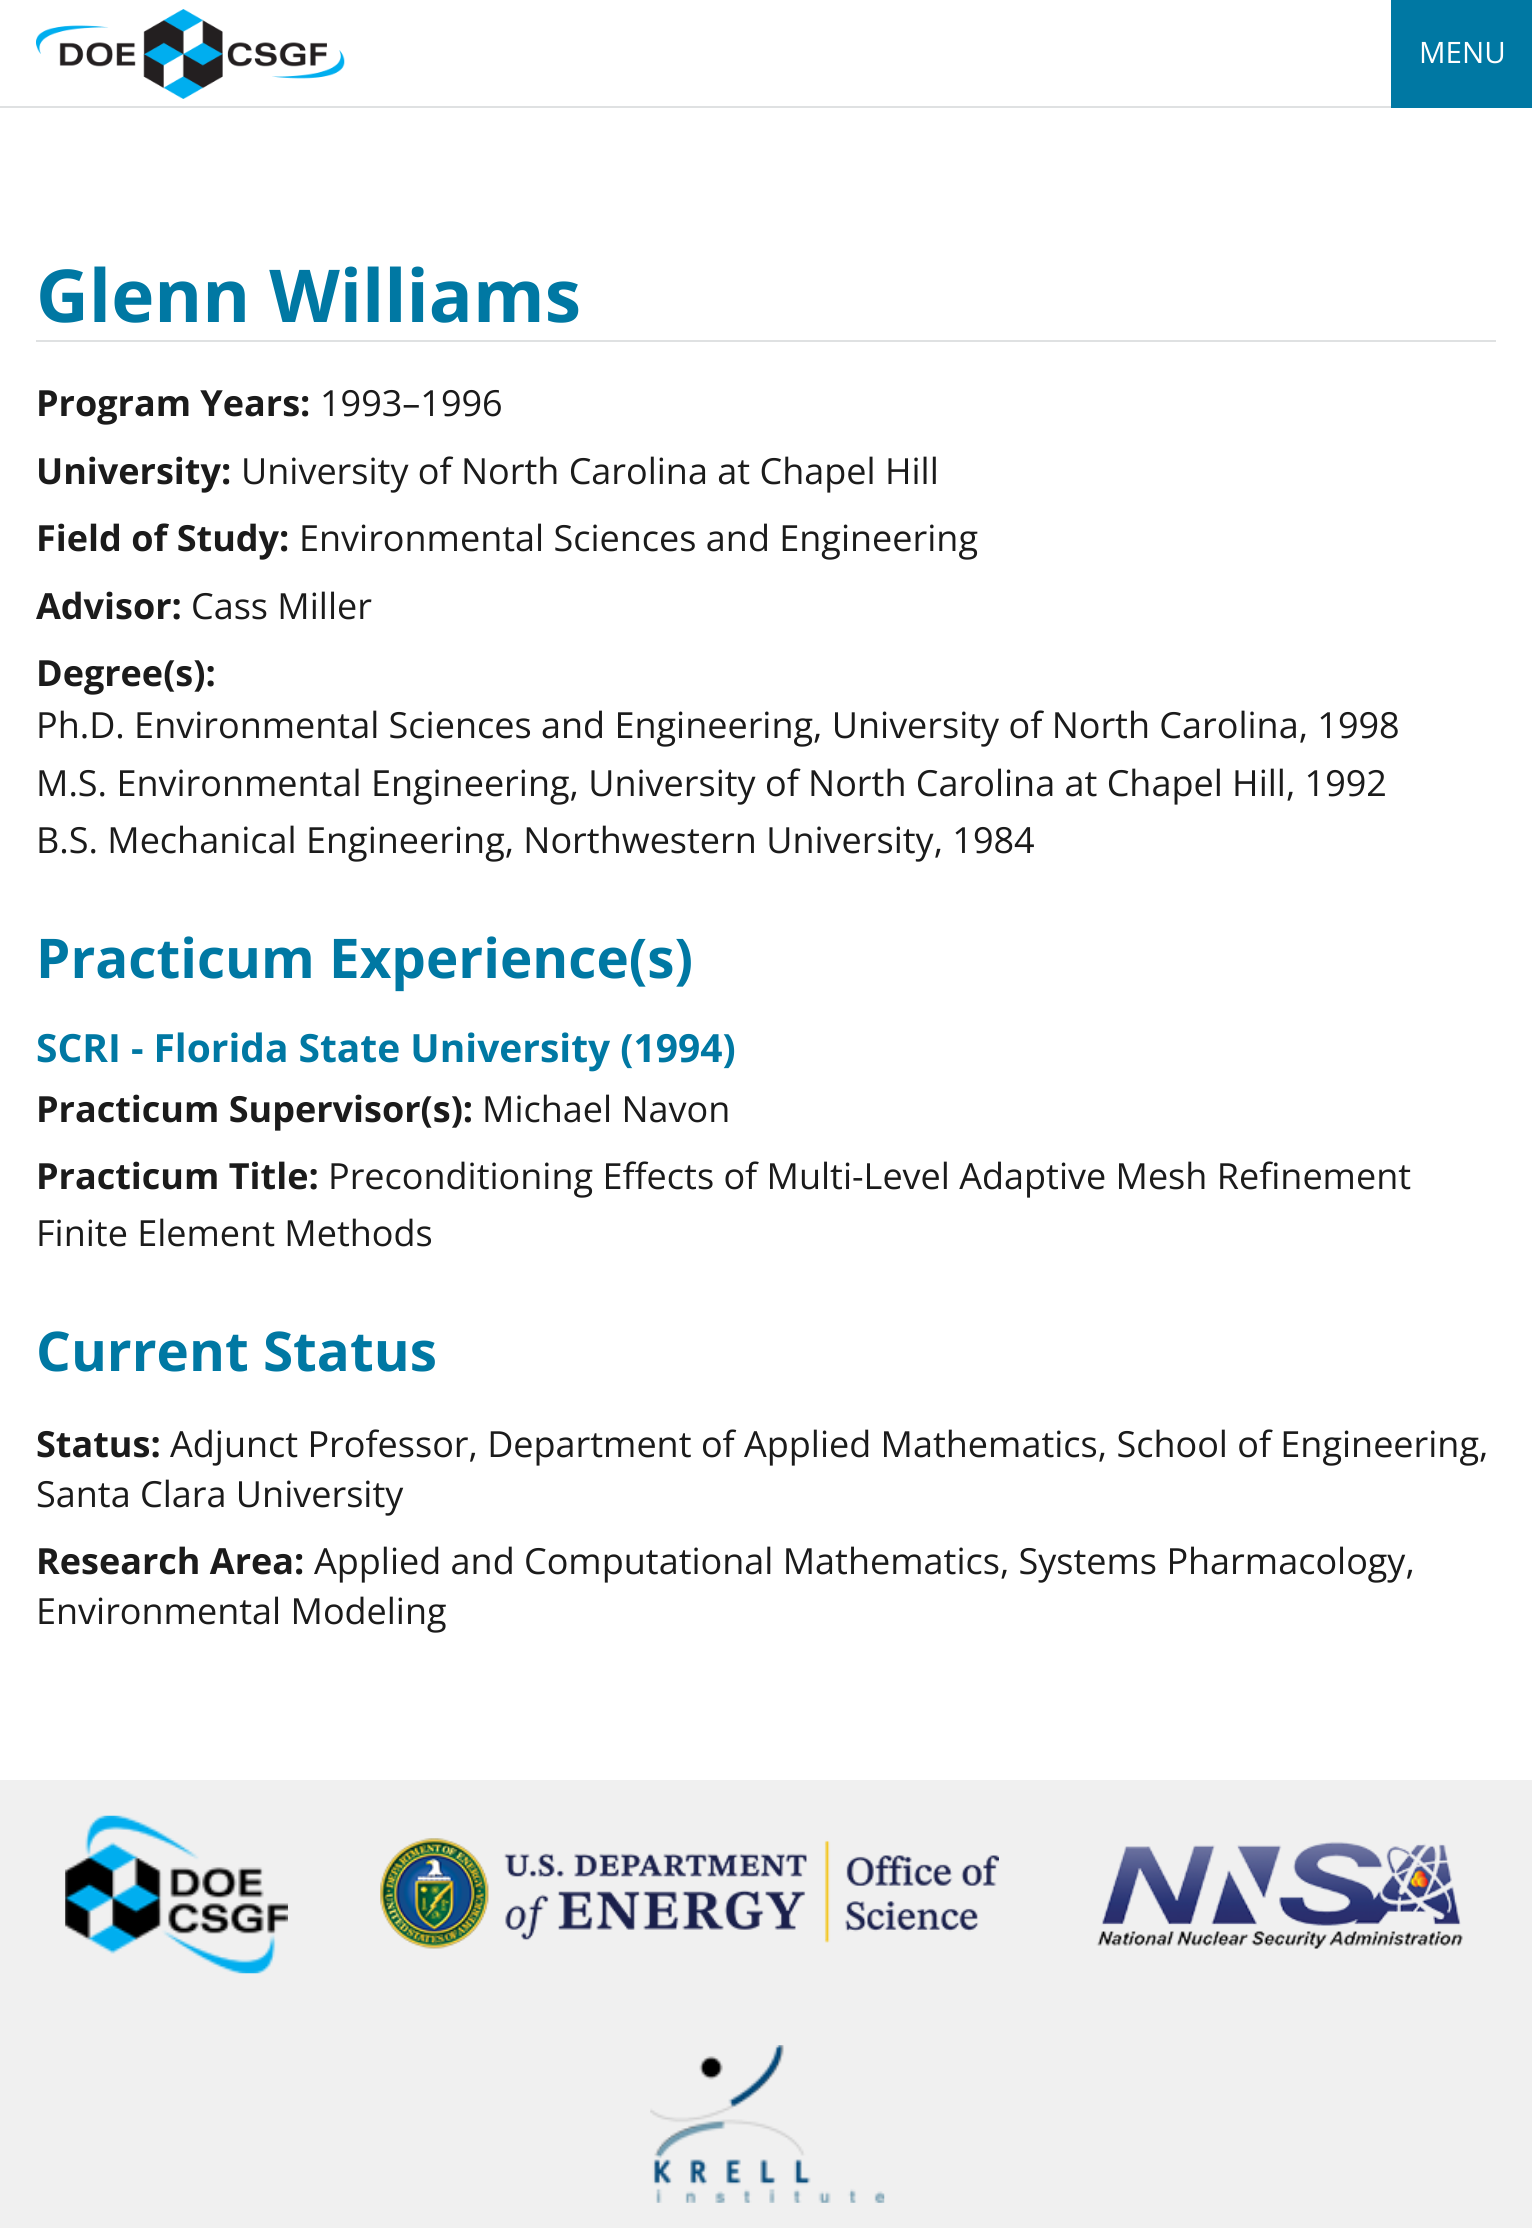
#include <cairo.h>
#include <math.h>
#include <stddef.h>


static void picture(cairo_t *cr, const char *path, double x, double y, double w, double h) {
    cairo_surface_t *image = cairo_image_surface_create_from_png(path);
    cairo_save(cr);
    cairo_set_source_surface(cr, image, x, y);
    cairo_rectangle(cr, x, y, w, h);
    cairo_fill(cr);
    cairo_restore(cr);
    cairo_surface_destroy(image);
}

int main(void) {
    cairo_surface_t *surface = cairo_image_surface_create(CAIRO_FORMAT_RGB24, 1532, 2228);
    cairo_t *cr = cairo_create(surface);
    cairo_font_options_t *options = cairo_font_options_create();
    cairo_font_options_set_hint_metrics(options, CAIRO_HINT_METRICS_OFF);
    cairo_font_options_set_hint_style(options, CAIRO_HINT_STYLE_NONE);
    cairo_set_font_options(cr, options);
    cairo_set_miter_limit(cr, 4);
    cairo_set_source_rgb(cr, 1, 1, 1);
    cairo_paint(cr);
    cairo_set_source_rgb(cr, 0.875, 0.882, 0.886);
    cairo_rectangle(cr, 0, 106, 1391, 2);
    cairo_fill(cr);
    picture(cr, "img1.png", 36, 9, 309, 90);
    cairo_set_source_rgb(cr, 0, 0.471, 0.639);
    cairo_rectangle(cr, 1391, 0, 141, 108);
    cairo_fill(cr);
    cairo_select_font_face(cr, "Open Sans", CAIRO_FONT_SLANT_NORMAL, CAIRO_FONT_WEIGHT_NORMAL);
    cairo_set_font_size(cr, 29.5);
    cairo_set_source_rgb(cr, 1, 1, 1);
    cairo_move_to(cr, 1419, 63);
    cairo_show_text(cr, "MENU");
    cairo_set_source_rgb(cr, 0.875, 0.882, 0.886);
    cairo_rectangle(cr, 36, 340, 1460, 2);
    cairo_fill(cr);
    cairo_select_font_face(cr, "Open Sans", CAIRO_FONT_SLANT_NORMAL, CAIRO_FONT_WEIGHT_BOLD);
    cairo_set_font_size(cr, 73);
    cairo_set_source_rgb(cr, 0, 0.471, 0.639);
    cairo_move_to(cr, 36, 322);
    cairo_show_text(cr, "Glenn Williams");
    cairo_set_font_size(cr, 36);
    cairo_set_source_rgb(cr, 0.106, 0.106, 0.106);
    cairo_move_to(cr, 36, 416);
    cairo_show_text(cr, "Program Years:");
    cairo_select_font_face(cr, "Open Sans", CAIRO_FONT_SLANT_NORMAL, CAIRO_FONT_WEIGHT_NORMAL);
    cairo_move_to(cr, 320, 416);
    cairo_show_text(cr, "1993–1996");
    cairo_select_font_face(cr, "Open Sans", CAIRO_FONT_SLANT_NORMAL, CAIRO_FONT_WEIGHT_BOLD);
    cairo_move_to(cr, 36, 484);
    cairo_show_text(cr, "University:");
    cairo_select_font_face(cr, "Open Sans", CAIRO_FONT_SLANT_NORMAL, CAIRO_FONT_WEIGHT_NORMAL);
    cairo_move_to(cr, 241, 484);
    cairo_show_text(cr, "University of North Carolina at Chapel Hill");
    cairo_select_font_face(cr, "Open Sans", CAIRO_FONT_SLANT_NORMAL, CAIRO_FONT_WEIGHT_BOLD);
    cairo_move_to(cr, 36, 551);
    cairo_show_text(cr, "Field of Study:");
    cairo_select_font_face(cr, "Open Sans", CAIRO_FONT_SLANT_NORMAL, CAIRO_FONT_WEIGHT_NORMAL);
    cairo_move_to(cr, 299, 551);
    cairo_show_text(cr, "Environmental Sciences and Engineering");
    cairo_select_font_face(cr, "Open Sans", CAIRO_FONT_SLANT_NORMAL, CAIRO_FONT_WEIGHT_BOLD);
    cairo_move_to(cr, 36, 619);
    cairo_show_text(cr, "Advisor:");
    cairo_select_font_face(cr, "Open Sans", CAIRO_FONT_SLANT_NORMAL, CAIRO_FONT_WEIGHT_NORMAL);
    cairo_move_to(cr, 191, 619);
    cairo_show_text(cr, "Cass Miller");
    cairo_select_font_face(cr, "Open Sans", CAIRO_FONT_SLANT_NORMAL, CAIRO_FONT_WEIGHT_BOLD);
    cairo_move_to(cr, 36, 686);
    cairo_show_text(cr, "Degree(s):");
    cairo_select_font_face(cr, "Open Sans", CAIRO_FONT_SLANT_NORMAL, CAIRO_FONT_WEIGHT_NORMAL);
    cairo_move_to(cr, 36, 738);
    cairo_show_text(cr, "Ph.D. Environmental Sciences and Engineering, University of North Carolina, 1998");
    cairo_move_to(cr, 36, 796);
    cairo_show_text(cr, "M.S. Environmental Engineering, University of North Carolina at Chapel Hill, 1992");
    cairo_move_to(cr, 36, 853);
    cairo_show_text(cr, "B.S. Mechanical Engineering, Northwestern University, 1984");
    cairo_select_font_face(cr, "Open Sans", CAIRO_FONT_SLANT_NORMAL, CAIRO_FONT_WEIGHT_BOLD);
    cairo_set_font_size(cr, 54.75);
    cairo_set_source_rgb(cr, 0, 0.471, 0.639);
    cairo_move_to(cr, 36, 978);
    cairo_show_text(cr, "Practicum Experience(s)");
    cairo_set_font_size(cr, 38.9);
    cairo_move_to(cr, 36, 1062);
    cairo_show_text(cr, "SCRI - Florida State University (1994)");
    cairo_set_font_size(cr, 36);
    cairo_set_source_rgb(cr, 0.106, 0.106, 0.106);
    cairo_move_to(cr, 36, 1122);
    cairo_show_text(cr, "Practicum Supervisor(s):");
    cairo_select_font_face(cr, "Open Sans", CAIRO_FONT_SLANT_NORMAL, CAIRO_FONT_WEIGHT_NORMAL);
    cairo_move_to(cr, 482, 1122);
    cairo_show_text(cr, "Michael Navon");
    cairo_select_font_face(cr, "Open Sans", CAIRO_FONT_SLANT_NORMAL, CAIRO_FONT_WEIGHT_BOLD);
    cairo_move_to(cr, 36, 1189);
    cairo_show_text(cr, "Practicum Title:");
    cairo_select_font_face(cr, "Open Sans", CAIRO_FONT_SLANT_NORMAL, CAIRO_FONT_WEIGHT_NORMAL);
    cairo_move_to(cr, 328, 1189);
    cairo_show_text(cr, "Preconditioning Effects of Multi-Level Adaptive Mesh Refinement");
    cairo_move_to(cr, 36, 1246);
    cairo_show_text(cr, "Finite Element Methods");
    cairo_select_font_face(cr, "Open Sans", CAIRO_FONT_SLANT_NORMAL, CAIRO_FONT_WEIGHT_BOLD);
    cairo_set_font_size(cr, 54.75);
    cairo_set_source_rgb(cr, 0, 0.471, 0.639);
    cairo_move_to(cr, 36, 1371);
    cairo_show_text(cr, "Current Status");
    cairo_set_font_size(cr, 36);
    cairo_set_source_rgb(cr, 0.106, 0.106, 0.106);
    cairo_move_to(cr, 36, 1457);
    cairo_show_text(cr, "Status:");
    cairo_select_font_face(cr, "Open Sans", CAIRO_FONT_SLANT_NORMAL, CAIRO_FONT_WEIGHT_NORMAL);
    cairo_move_to(cr, 170, 1457);
    cairo_show_text(cr, "Adjunct Professor, Department of Applied Mathematics, School of Engineering,");
    cairo_move_to(cr, 36, 1507);
    cairo_show_text(cr, "Santa Clara University");
    cairo_select_font_face(cr, "Open Sans", CAIRO_FONT_SLANT_NORMAL, CAIRO_FONT_WEIGHT_BOLD);
    cairo_move_to(cr, 36, 1574);
    cairo_show_text(cr, "Research Area:");
    cairo_select_font_face(cr, "Open Sans", CAIRO_FONT_SLANT_NORMAL, CAIRO_FONT_WEIGHT_NORMAL);
    cairo_move_to(cr, 314, 1574);
    cairo_show_text(cr, "Applied and Computational Mathematics, Systems Pharmacology,");
    cairo_move_to(cr, 36, 1624);
    cairo_show_text(cr, "Environmental Modeling");
    cairo_set_source_rgb(cr, 0.941, 0.941, 0.941);
    cairo_rectangle(cr, 0, 1780, 1532, 448);
    cairo_fill(cr);
    picture(cr, "img2.png", 65, 1815, 223, 159);
    picture(cr, "img3.png", 380, 1838, 619, 111);
    picture(cr, "img4.png", 1096, 1841, 367, 108);
    picture(cr, "img5.png", 650, 2045, 235, 158);
    cairo_surface_write_to_png(surface, "page.png");
    cairo_font_options_destroy(options);
    cairo_destroy(cr);
    cairo_surface_destroy(surface);
    return 0;
}
